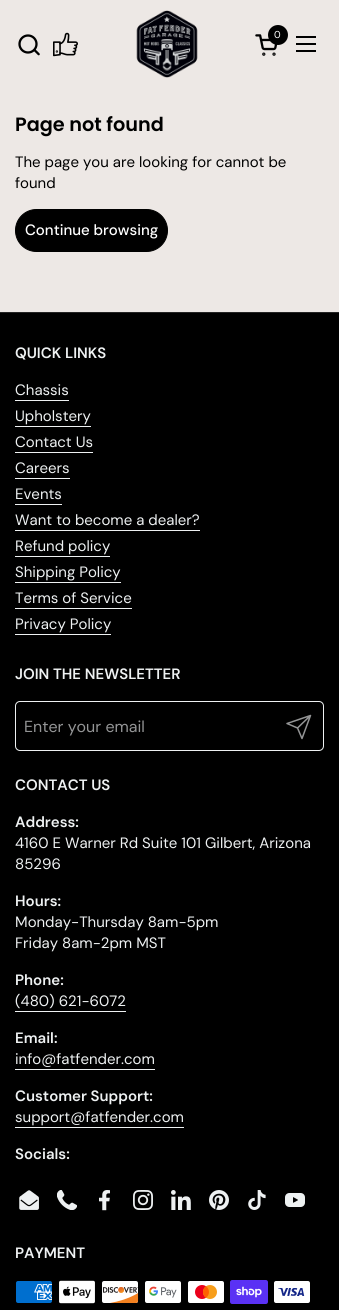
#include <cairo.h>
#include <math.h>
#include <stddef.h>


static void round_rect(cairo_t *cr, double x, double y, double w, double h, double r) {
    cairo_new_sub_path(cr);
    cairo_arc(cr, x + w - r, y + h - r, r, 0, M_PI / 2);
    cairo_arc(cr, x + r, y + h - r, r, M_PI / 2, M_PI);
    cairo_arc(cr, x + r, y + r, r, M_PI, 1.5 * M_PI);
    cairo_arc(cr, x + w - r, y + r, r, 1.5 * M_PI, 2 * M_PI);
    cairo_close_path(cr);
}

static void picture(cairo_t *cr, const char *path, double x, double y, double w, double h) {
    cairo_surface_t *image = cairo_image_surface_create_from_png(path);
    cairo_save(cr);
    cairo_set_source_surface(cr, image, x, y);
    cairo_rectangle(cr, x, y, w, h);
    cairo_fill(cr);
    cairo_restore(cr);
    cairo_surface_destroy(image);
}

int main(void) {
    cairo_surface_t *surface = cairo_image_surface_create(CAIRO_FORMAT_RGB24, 339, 1310);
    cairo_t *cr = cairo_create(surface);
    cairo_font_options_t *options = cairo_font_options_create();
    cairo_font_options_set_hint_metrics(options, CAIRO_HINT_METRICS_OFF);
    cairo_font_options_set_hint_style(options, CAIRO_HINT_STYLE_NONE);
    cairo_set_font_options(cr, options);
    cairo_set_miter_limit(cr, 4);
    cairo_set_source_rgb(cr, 0.929, 0.91, 0.898);
    cairo_paint(cr);
    picture(cr, "img1.png", 18, 34, 22, 22);
    picture(cr, "img2.png", 53, 32, 25, 25);
    picture(cr, "img3.png", 136, 10, 62, 68);
    cairo_set_source_rgb(cr, 0, 0, 0);
    cairo_arc(cr, 278, 35, 10, 0, 2 * M_PI);
    cairo_fill(cr);
    cairo_select_font_face(cr, "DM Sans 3", CAIRO_FONT_SLANT_NORMAL, CAIRO_FONT_WEIGHT_NORMAL);
    cairo_set_font_size(cr, 10);
    cairo_set_source_rgb(cr, 1, 1, 1);
    cairo_move_to(cr, 274, 38);
    cairo_show_text(cr, "0");
    picture(cr, "img4.png", 255, 34, 22, 22);
    cairo_set_source_rgb(cr, 0, 0, 0);
    cairo_rectangle(cr, 296, 36, 20, 2);
    cairo_fill(cr);
    cairo_rectangle(cr, 296, 43, 20, 2);
    cairo_fill(cr);
    cairo_rectangle(cr, 296, 50, 20, 2);
    cairo_fill(cr);
    cairo_select_font_face(cr, "Poppins SemiBold", CAIRO_FONT_SLANT_NORMAL, CAIRO_FONT_WEIGHT_NORMAL);
    cairo_set_font_size(cr, 19.25);
    cairo_move_to(cr, 15, 131);
    cairo_show_text(cr, "Page not found");
    cairo_select_font_face(cr, "DM Sans", CAIRO_FONT_SLANT_NORMAL, CAIRO_FONT_WEIGHT_NORMAL);
    cairo_set_font_size(cr, 15);
    cairo_move_to(cr, 15, 167);
    cairo_show_text(cr, "The page you are looking for cannot be");
    cairo_move_to(cr, 15, 188);
    cairo_show_text(cr, "found");
    round_rect(cr, 15.5, 209.5, 152, 42, 21);
    cairo_fill_preserve(cr);
    cairo_set_line_width(cr, 1);
    cairo_stroke(cr);
    cairo_select_font_face(cr, "DM Sans Medium", CAIRO_FONT_SLANT_NORMAL, CAIRO_FONT_WEIGHT_NORMAL);
    cairo_set_source_rgb(cr, 1, 1, 1);
    cairo_move_to(cr, 25, 235);
    cairo_show_text(cr, "Continue browsing");
    cairo_set_source_rgb(cr, 0, 0, 0);
    cairo_rectangle(cr, 0, 313, 339, 997);
    cairo_fill(cr);
    cairo_set_source_rgb(cr, 0.141, 0.141, 0.141);
    cairo_rectangle(cr, 0, 312, 339, 1);
    cairo_fill(cr);
    cairo_select_font_face(cr, "DM Sans SemiBold", CAIRO_FONT_SLANT_NORMAL, CAIRO_FONT_WEIGHT_NORMAL);
    cairo_set_source_rgb(cr, 0.933, 0.945, 0.949);
    cairo_move_to(cr, 15, 358);
    cairo_show_text(cr, "QUICK LINKS");
    cairo_select_font_face(cr, "DM Sans", CAIRO_FONT_SLANT_NORMAL, CAIRO_FONT_WEIGHT_NORMAL);
    cairo_move_to(cr, 15, 395);
    cairo_show_text(cr, "Chassis");
    cairo_rectangle(cr, 15, 400, 54, 1);
    cairo_fill(cr);
    cairo_move_to(cr, 15, 421);
    cairo_show_text(cr, "Upholstery");
    cairo_rectangle(cr, 15, 426, 76, 1);
    cairo_fill(cr);
    cairo_move_to(cr, 15, 447);
    cairo_show_text(cr, "Contact Us");
    cairo_rectangle(cr, 15, 452, 78, 1);
    cairo_fill(cr);
    cairo_move_to(cr, 15, 473);
    cairo_show_text(cr, "Careers");
    cairo_rectangle(cr, 15, 478, 55, 1);
    cairo_fill(cr);
    cairo_move_to(cr, 15, 499);
    cairo_show_text(cr, "Events");
    cairo_rectangle(cr, 15, 504, 47, 1);
    cairo_fill(cr);
    cairo_move_to(cr, 15, 525);
    cairo_show_text(cr, "Want to become a dealer?");
    cairo_rectangle(cr, 15, 530, 185, 1);
    cairo_fill(cr);
    cairo_move_to(cr, 15, 551);
    cairo_show_text(cr, "Refund policy");
    cairo_rectangle(cr, 15, 556, 95, 1);
    cairo_fill(cr);
    cairo_move_to(cr, 15, 577);
    cairo_show_text(cr, "Shipping Policy");
    cairo_rectangle(cr, 15, 582, 106, 1);
    cairo_fill(cr);
    cairo_move_to(cr, 15, 603);
    cairo_show_text(cr, "Terms of Service");
    cairo_rectangle(cr, 15, 608, 117, 1);
    cairo_fill(cr);
    cairo_move_to(cr, 15, 629);
    cairo_show_text(cr, "Privacy Policy");
    cairo_rectangle(cr, 15, 634, 96, 1);
    cairo_fill(cr);
    cairo_select_font_face(cr, "DM Sans SemiBold", CAIRO_FONT_SLANT_NORMAL, CAIRO_FONT_WEIGHT_NORMAL);
    cairo_move_to(cr, 15, 679);
    cairo_show_text(cr, "JOIN THE NEWSLETTER");
    round_rect(cr, 15.5, 701.5, 308, 49, 4.5);
    cairo_stroke(cr);
    cairo_select_font_face(cr, "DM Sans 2", CAIRO_FONT_SLANT_NORMAL, CAIRO_FONT_WEIGHT_NORMAL);
    cairo_set_font_size(cr, 16);
    cairo_set_source_rgb(cr, 0.58, 0.584, 0.588);
    cairo_move_to(cr, 24, 732);
    cairo_show_text(cr, "Enter your email");
    cairo_new_path(cr);
    cairo_move_to(cr, 310.5, 715.5);
    cairo_line_to(cr, 297.5, 728);
    cairo_move_to(cr, 310.5, 715.5);
    cairo_line_to(cr, 302, 738.5);
    cairo_line_to(cr, 297.5, 728);
    cairo_line_to(cr, 287, 723.5);
    cairo_close_path(cr);
    cairo_set_line_width(cr, 1.5);
    cairo_set_line_cap(cr, CAIRO_LINE_CAP_ROUND);
    cairo_set_line_join(cr, CAIRO_LINE_JOIN_ROUND);
    cairo_stroke(cr);
    cairo_select_font_face(cr, "DM Sans SemiBold", CAIRO_FONT_SLANT_NORMAL, CAIRO_FONT_WEIGHT_NORMAL);
    cairo_set_font_size(cr, 15);
    cairo_set_source_rgb(cr, 0.933, 0.945, 0.949);
    cairo_move_to(cr, 15, 790);
    cairo_show_text(cr, "CONTACT US");
    cairo_move_to(cr, 15, 827);
    cairo_show_text(cr, "Address:");
    cairo_select_font_face(cr, "DM Sans", CAIRO_FONT_SLANT_NORMAL, CAIRO_FONT_WEIGHT_NORMAL);
    cairo_move_to(cr, 15, 848);
    cairo_show_text(cr, "4160 E Warner Rd Suite 101 Gilbert, Arizona");
    cairo_move_to(cr, 15, 869);
    cairo_show_text(cr, "85296");
    cairo_select_font_face(cr, "DM Sans SemiBold", CAIRO_FONT_SLANT_NORMAL, CAIRO_FONT_WEIGHT_NORMAL);
    cairo_move_to(cr, 15, 906);
    cairo_show_text(cr, "Hours:");
    cairo_select_font_face(cr, "DM Sans", CAIRO_FONT_SLANT_NORMAL, CAIRO_FONT_WEIGHT_NORMAL);
    cairo_move_to(cr, 15, 927);
    cairo_show_text(cr, "Monday-Thursday 8am-5pm");
    cairo_move_to(cr, 15, 948);
    cairo_show_text(cr, "Friday 8am-2pm MST");
    cairo_select_font_face(cr, "DM Sans SemiBold", CAIRO_FONT_SLANT_NORMAL, CAIRO_FONT_WEIGHT_NORMAL);
    cairo_move_to(cr, 15, 985);
    cairo_show_text(cr, "Phone:");
    cairo_select_font_face(cr, "DM Sans", CAIRO_FONT_SLANT_NORMAL, CAIRO_FONT_WEIGHT_NORMAL);
    cairo_move_to(cr, 15, 1006);
    cairo_show_text(cr, "(480) 621-6072");
    cairo_rectangle(cr, 15, 1011, 111, 1);
    cairo_fill(cr);
    cairo_select_font_face(cr, "DM Sans SemiBold", CAIRO_FONT_SLANT_NORMAL, CAIRO_FONT_WEIGHT_NORMAL);
    cairo_move_to(cr, 15, 1043);
    cairo_show_text(cr, "Email:");
    cairo_select_font_face(cr, "DM Sans", CAIRO_FONT_SLANT_NORMAL, CAIRO_FONT_WEIGHT_NORMAL);
    cairo_move_to(cr, 15, 1064);
    cairo_show_text(cr, "info@fatfender.com");
    cairo_rectangle(cr, 15, 1069, 140, 1);
    cairo_fill(cr);
    cairo_select_font_face(cr, "DM Sans SemiBold", CAIRO_FONT_SLANT_NORMAL, CAIRO_FONT_WEIGHT_NORMAL);
    cairo_move_to(cr, 15, 1101);
    cairo_show_text(cr, "Customer Support:");
    cairo_select_font_face(cr, "DM Sans", CAIRO_FONT_SLANT_NORMAL, CAIRO_FONT_WEIGHT_NORMAL);
    cairo_move_to(cr, 15, 1122);
    cairo_show_text(cr, "support@fatfender.com");
    cairo_rectangle(cr, 15, 1127, 169, 1);
    cairo_fill(cr);
    cairo_select_font_face(cr, "DM Sans SemiBold", CAIRO_FONT_SLANT_NORMAL, CAIRO_FONT_WEIGHT_NORMAL);
    cairo_move_to(cr, 15, 1159);
    cairo_show_text(cr, "Socials:");
    picture(cr, "img5.png", 19, 1190, 20, 20);
    picture(cr, "img6.png", 57, 1190, 20, 20);
    picture(cr, "img7.png", 99, 1190, 11, 21);
    picture(cr, "img8.png", 133, 1190, 20, 20);
    picture(cr, "img9.png", 171, 1190, 20, 20);
    picture(cr, "img10.png", 209, 1190, 20, 20);
    picture(cr, "img11.png", 248, 1190, 18, 20);
    picture(cr, "img12.png", 285, 1193, 20, 14);
    cairo_move_to(cr, 15, 1258);
    cairo_show_text(cr, "PAYMENT");
    picture(cr, "img13.png", 16, 1281, 36, 22);
    picture(cr, "img14.png", 59, 1280, 36, 24);
    picture(cr, "img15.png", 102, 1281, 37, 22);
    picture(cr, "img16.png", 145, 1281, 36, 22);
    picture(cr, "img17.png", 188, 1281, 36, 22);
    picture(cr, "img18.png", 230, 1280, 38, 24);
    picture(cr, "img19.png", 274, 1281, 36, 22);
    cairo_surface_write_to_png(surface, "page.png");
    cairo_font_options_destroy(options);
    cairo_destroy(cr);
    cairo_surface_destroy(surface);
    return 0;
}
